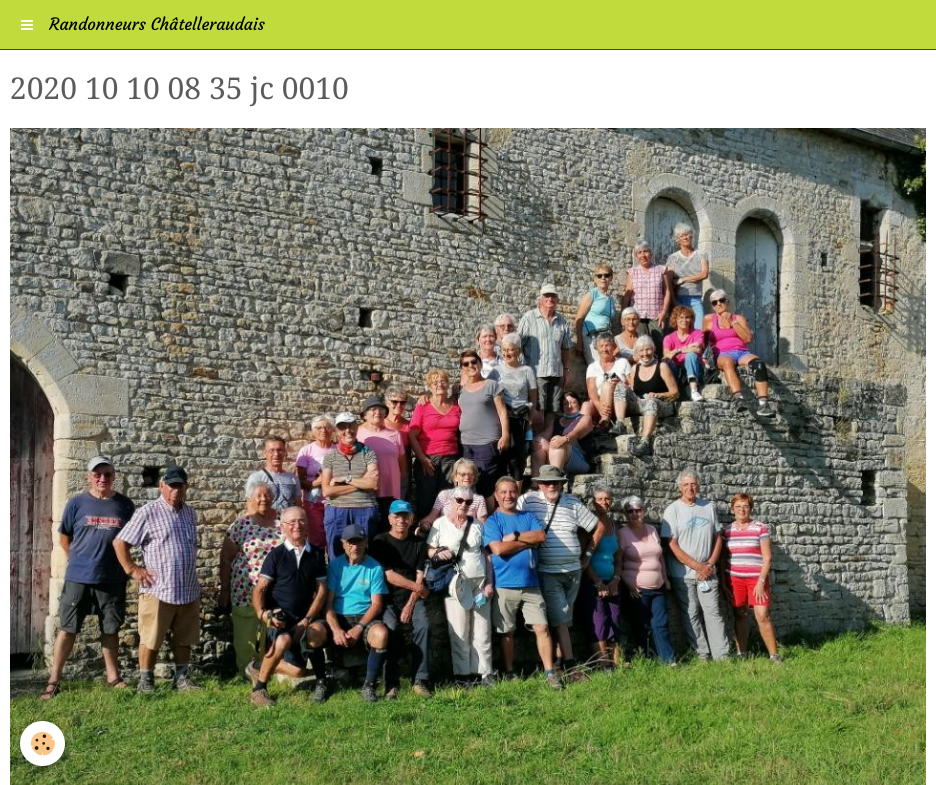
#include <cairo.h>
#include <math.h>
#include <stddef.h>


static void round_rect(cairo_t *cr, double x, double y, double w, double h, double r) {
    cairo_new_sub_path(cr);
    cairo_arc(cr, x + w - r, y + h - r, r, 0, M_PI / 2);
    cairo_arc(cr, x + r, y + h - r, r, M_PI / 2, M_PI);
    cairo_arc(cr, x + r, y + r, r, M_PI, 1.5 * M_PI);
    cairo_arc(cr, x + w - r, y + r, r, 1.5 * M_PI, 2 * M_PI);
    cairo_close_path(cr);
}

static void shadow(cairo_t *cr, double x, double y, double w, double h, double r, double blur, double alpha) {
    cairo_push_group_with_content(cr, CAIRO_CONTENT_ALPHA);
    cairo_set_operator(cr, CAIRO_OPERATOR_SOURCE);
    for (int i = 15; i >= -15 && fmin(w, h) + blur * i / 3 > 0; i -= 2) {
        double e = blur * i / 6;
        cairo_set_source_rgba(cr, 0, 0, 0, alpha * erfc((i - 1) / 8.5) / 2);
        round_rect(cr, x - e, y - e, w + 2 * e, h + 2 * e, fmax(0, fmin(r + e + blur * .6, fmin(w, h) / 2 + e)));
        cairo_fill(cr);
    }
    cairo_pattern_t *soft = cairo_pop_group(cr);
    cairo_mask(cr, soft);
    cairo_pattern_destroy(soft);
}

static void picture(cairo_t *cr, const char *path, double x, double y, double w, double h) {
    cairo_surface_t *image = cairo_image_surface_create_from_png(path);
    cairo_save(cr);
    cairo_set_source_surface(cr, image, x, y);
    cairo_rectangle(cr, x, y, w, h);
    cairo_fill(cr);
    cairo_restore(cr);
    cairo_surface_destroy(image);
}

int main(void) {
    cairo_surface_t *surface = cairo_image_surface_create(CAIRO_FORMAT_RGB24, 936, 785);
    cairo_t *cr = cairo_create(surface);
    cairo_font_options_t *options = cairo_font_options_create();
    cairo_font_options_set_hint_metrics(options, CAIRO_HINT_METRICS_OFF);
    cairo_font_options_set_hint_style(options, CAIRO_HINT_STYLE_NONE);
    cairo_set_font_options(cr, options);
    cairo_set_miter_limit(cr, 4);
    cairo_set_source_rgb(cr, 1, 1, 1);
    cairo_paint(cr);
    cairo_set_source_rgb(cr, 0.757, 0.859, 0.235);
    cairo_rectangle(cr, 0, 0, 936, 49);
    cairo_fill(cr);
    cairo_set_source_rgb(cr, 0.255, 0.255, 0.239);
    cairo_rectangle(cr, 0, 49, 936, 1);
    cairo_fill(cr);
    picture(cr, "img1.png", 21, 20, 12, 10);
    cairo_save(cr);
    cairo_rectangle(cr, 49, 13, 216, 23);
    cairo_clip(cr);
    cairo_select_font_face(cr, "Courgette", CAIRO_FONT_SLANT_NORMAL, CAIRO_FONT_WEIGHT_NORMAL);
    cairo_set_font_size(cr, 16.75);
    cairo_set_source_rgb(cr, 0, 0, 0);
    cairo_move_to(cr, 49, 30);
    cairo_show_text(cr, "Randonneurs Châtelleraudais");
    cairo_restore(cr);
    cairo_select_font_face(cr, "Droid Serif", CAIRO_FONT_SLANT_NORMAL, CAIRO_FONT_WEIGHT_NORMAL);
    cairo_set_font_size(cr, 30);
    cairo_set_source_rgb(cr, 0.357, 0.357, 0.357);
    cairo_move_to(cr, 10, 99);
    cairo_show_text(cr, "2020 10 10 08 35 jc 0010");
    picture(cr, "img2.png", 10, 128, 916, 657);
    cairo_set_source_rgb(cr, 0, 0, 0);
    shadow(cr, 20, 724, 45, 45, 22.5, 5, 0.24);
    cairo_set_source_rgb(cr, 1, 1, 1);
    cairo_arc(cr, 42.5, 743.5, 22.5, 0, 2 * M_PI);
    cairo_fill(cr);
    picture(cr, "img3.png", 30, 731, 25, 25);
    cairo_surface_write_to_png(surface, "page.png");
    cairo_font_options_destroy(options);
    cairo_destroy(cr);
    cairo_surface_destroy(surface);
    return 0;
}
